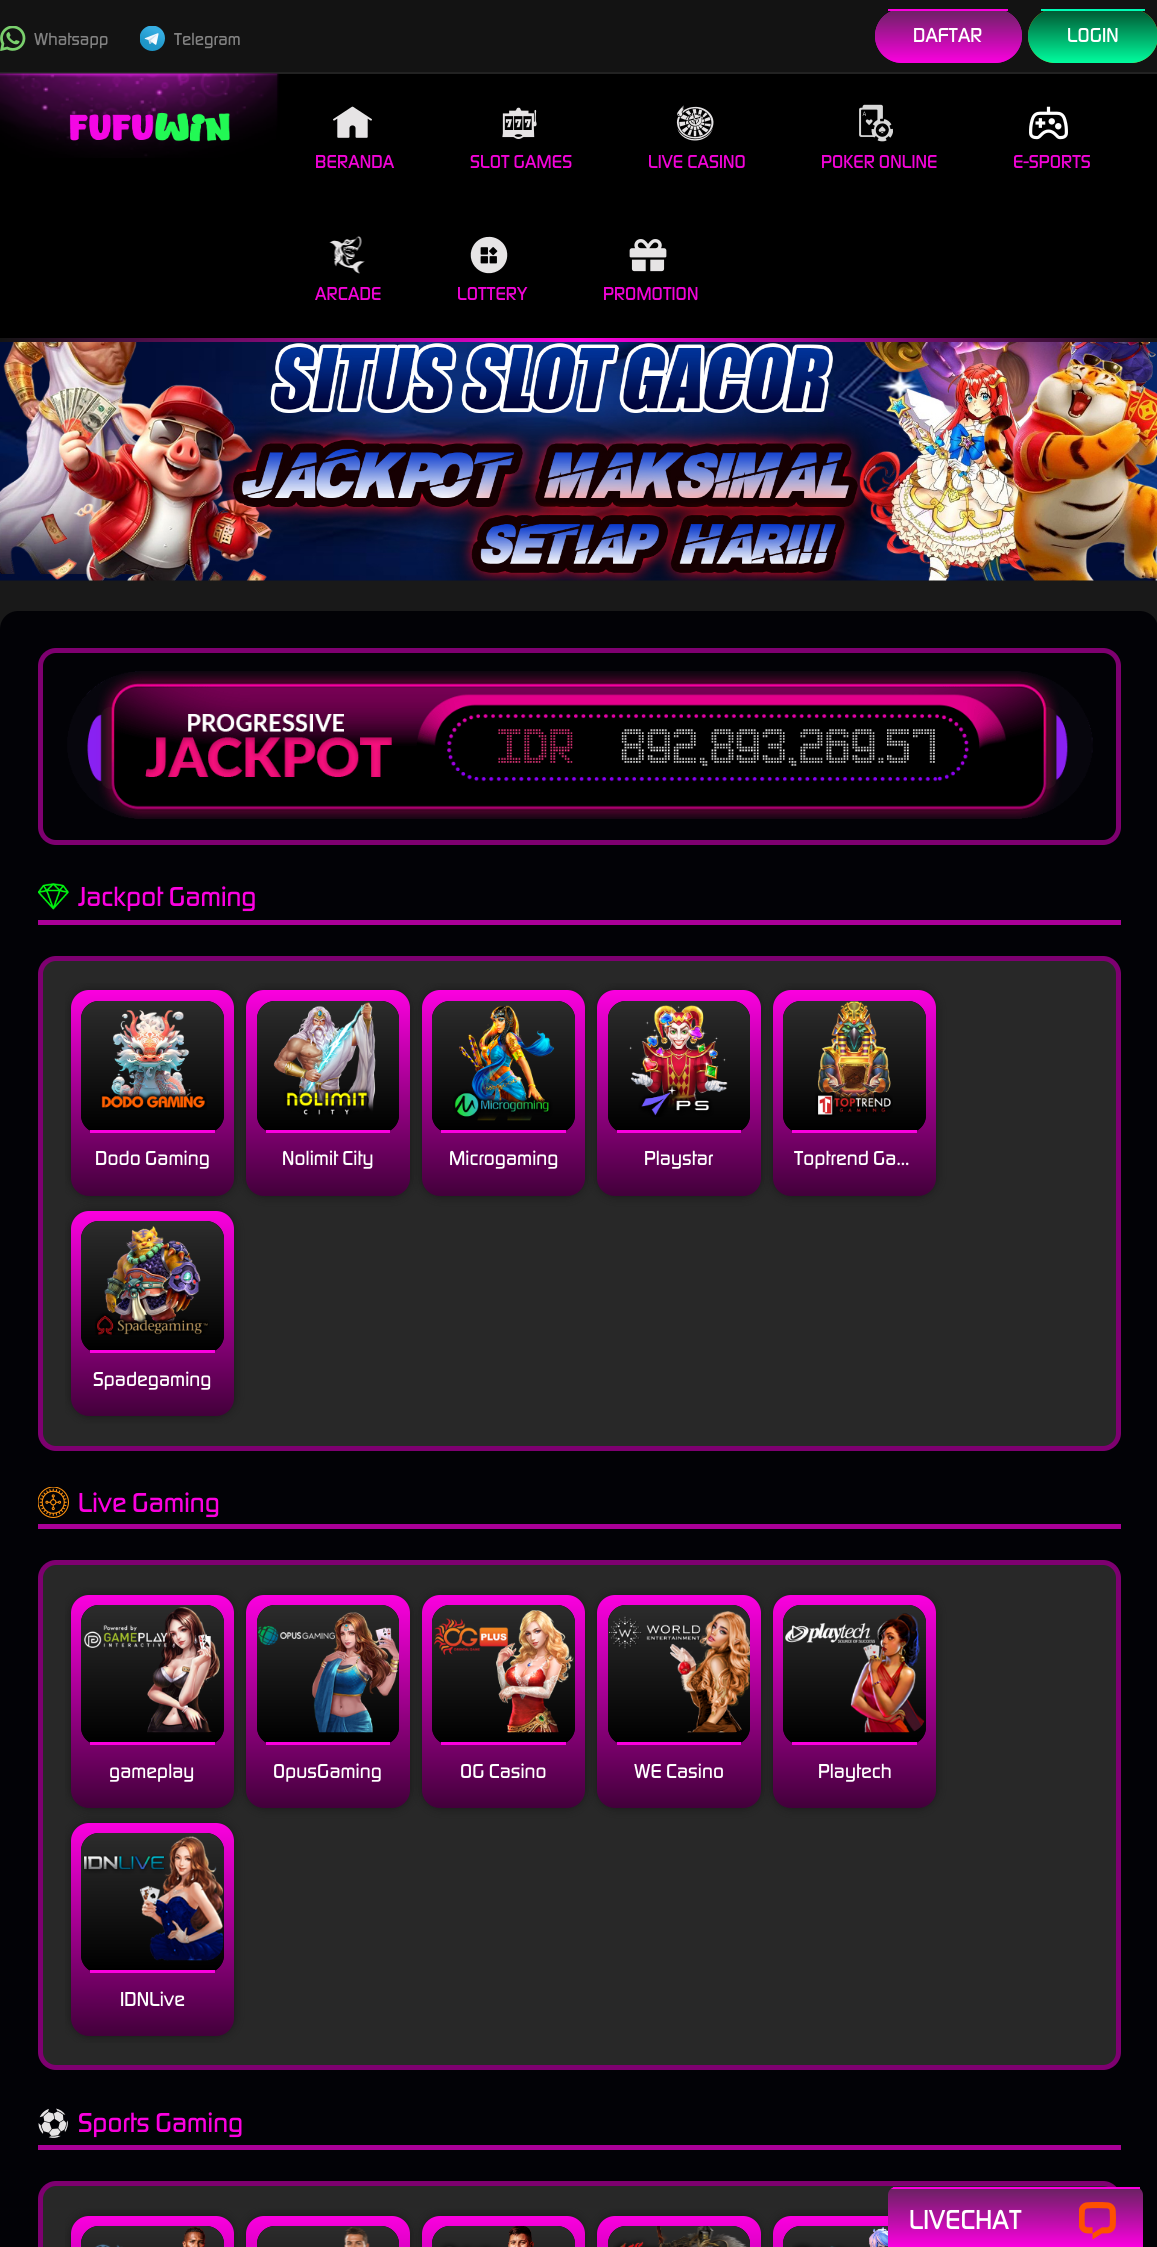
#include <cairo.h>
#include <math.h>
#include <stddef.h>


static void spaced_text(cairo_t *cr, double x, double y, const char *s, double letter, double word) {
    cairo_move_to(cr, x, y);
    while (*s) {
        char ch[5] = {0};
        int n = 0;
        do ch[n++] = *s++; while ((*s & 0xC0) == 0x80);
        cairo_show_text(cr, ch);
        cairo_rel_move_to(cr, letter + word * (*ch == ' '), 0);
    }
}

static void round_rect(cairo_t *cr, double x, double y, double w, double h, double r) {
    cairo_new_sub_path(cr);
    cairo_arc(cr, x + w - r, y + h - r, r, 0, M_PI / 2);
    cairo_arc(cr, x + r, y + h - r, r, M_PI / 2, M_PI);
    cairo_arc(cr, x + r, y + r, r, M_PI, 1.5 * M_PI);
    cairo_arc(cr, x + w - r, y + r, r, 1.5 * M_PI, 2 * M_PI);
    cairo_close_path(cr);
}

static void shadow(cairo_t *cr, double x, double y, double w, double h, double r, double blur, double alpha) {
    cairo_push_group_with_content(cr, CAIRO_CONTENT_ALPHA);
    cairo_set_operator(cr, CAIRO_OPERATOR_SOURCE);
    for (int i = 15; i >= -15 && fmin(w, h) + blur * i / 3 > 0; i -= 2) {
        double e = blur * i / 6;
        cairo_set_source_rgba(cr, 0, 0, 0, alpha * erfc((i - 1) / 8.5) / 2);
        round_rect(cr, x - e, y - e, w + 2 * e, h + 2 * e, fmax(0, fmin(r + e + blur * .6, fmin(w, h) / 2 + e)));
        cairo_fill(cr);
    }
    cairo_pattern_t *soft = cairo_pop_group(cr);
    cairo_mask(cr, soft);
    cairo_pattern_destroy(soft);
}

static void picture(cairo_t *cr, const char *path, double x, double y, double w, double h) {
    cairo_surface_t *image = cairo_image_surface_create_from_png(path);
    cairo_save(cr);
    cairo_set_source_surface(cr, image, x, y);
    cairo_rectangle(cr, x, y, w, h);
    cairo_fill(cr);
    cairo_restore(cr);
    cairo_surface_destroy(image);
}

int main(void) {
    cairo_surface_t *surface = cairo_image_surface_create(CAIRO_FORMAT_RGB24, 1157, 2247);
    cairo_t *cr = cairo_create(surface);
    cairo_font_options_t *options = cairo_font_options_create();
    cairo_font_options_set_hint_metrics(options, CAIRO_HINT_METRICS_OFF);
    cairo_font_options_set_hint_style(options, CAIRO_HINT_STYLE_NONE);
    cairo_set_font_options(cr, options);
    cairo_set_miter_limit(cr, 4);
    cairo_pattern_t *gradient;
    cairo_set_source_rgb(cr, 0.098, 0.098, 0.098);
    cairo_paint(cr);
    cairo_set_source_rgb(cr, 0.075, 0.075, 0.075);
    cairo_rectangle(cr, 0, 0, 1157, 72);
    cairo_fill(cr);
    picture(cr, "img1.png", 0, 26, 26, 25);
    cairo_select_font_face(cr, "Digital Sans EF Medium", CAIRO_FONT_SLANT_NORMAL, CAIRO_FONT_WEIGHT_NORMAL);
    cairo_set_font_size(cr, 18);
    cairo_set_source_rgb(cr, 0.51, 0.51, 0.51);
    spaced_text(cr, 34, 45, "Whatsapp", 0.1, 0);
    picture(cr, "img2.png", 140, 26, 25, 25);
    spaced_text(cr, 174, 45, "Telegram", 0.1, 0);
    cairo_set_source_rgb(cr, 0.839, 0.024, 0.788);
    round_rect(cr, 875, 9, 147, 54, 27);
    cairo_fill(cr);
    cairo_save(cr);
    round_rect(cr, 875, 9, 147, 54, 27);
    cairo_clip(cr);
    gradient = cairo_pattern_create_linear(948, 10, 948, 63);
    cairo_pattern_add_color_stop_rgba(gradient, 0, 0.42, 0.133, 0.388, 1);
    cairo_pattern_add_color_stop_rgba(gradient, 1, 0.984, 0, 0.875, 1);
    cairo_set_source(cr, gradient);
    cairo_pattern_destroy(gradient);
    cairo_new_path(cr);
    cairo_move_to(cr, 875, 11);
    cairo_line_to(cr, 1022, 11);
    cairo_line_to(cr, 1022, 36);
    cairo_curve_to(cr, 1022, 51, 1010, 63, 995, 63);
    cairo_line_to(cr, 902, 63);
    cairo_curve_to(cr, 887, 63, 875, 51, 875, 36);
    cairo_close_path(cr);
    cairo_fill(cr);
    cairo_restore(cr);
    cairo_set_source_rgb(cr, 0.984, 0, 0.875);
    cairo_rectangle(cr, 888, 9, 120, 2);
    cairo_fill(cr);
    cairo_set_font_size(cr, 21);
    cairo_set_source_rgb(cr, 1, 1, 1);
    spaced_text(cr, 913, 42, "DAFTAR", 0.1, 0);
    cairo_set_source_rgb(cr, 0.827, 0.58, 0);
    round_rect(cr, 1028, 9, 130, 54, 27);
    cairo_fill(cr);
    cairo_save(cr);
    round_rect(cr, 1028, 9, 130, 54, 27);
    cairo_clip(cr);
    gradient = cairo_pattern_create_linear(1093, 10, 1093, 63);
    cairo_pattern_add_color_stop_rgba(gradient, 0, 0, 0.341, 0.196, 1);
    cairo_pattern_add_color_stop_rgba(gradient, 1, 0, 0.992, 0.62, 1);
    cairo_set_source(cr, gradient);
    cairo_pattern_destroy(gradient);
    cairo_new_path(cr);
    cairo_move_to(cr, 1028, 11);
    cairo_line_to(cr, 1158, 11);
    cairo_line_to(cr, 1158, 36);
    cairo_curve_to(cr, 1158, 51, 1146, 63, 1131, 63);
    cairo_line_to(cr, 1055, 63);
    cairo_curve_to(cr, 1040, 63, 1028, 51, 1028, 36);
    cairo_close_path(cr);
    cairo_fill(cr);
    cairo_restore(cr);
    cairo_set_source_rgb(cr, 0, 0.992, 0.714);
    cairo_rectangle(cr, 1041, 9, 104, 2);
    cairo_fill(cr);
    cairo_set_source_rgb(cr, 1, 1, 1);
    spaced_text(cr, 1067, 42, "LOGIN", 0.1, 0);
    cairo_set_source_rgb(cr, 0, 0, 0);
    cairo_rectangle(cr, 0, 74, 1157, 264);
    cairo_fill(cr);
    cairo_set_source_rgb(cr, 0.133, 0.133, 0.133);
    cairo_rectangle(cr, 0, 72, 1157, 2);
    cairo_fill(cr);
    picture(cr, "img3.png", 0, 73, 279, 85);
    picture(cr, "img4.png", 69, 112, 161, 30);
    picture(cr, "img5.png", 333, 106, 39, 32);
    cairo_set_font_size(cr, 19.5);
    cairo_set_source_rgb(cr, 0.949, 0.012, 0.843);
    spaced_text(cr, 315, 168, "BERANDA", 0.1, 0);
    picture(cr, "img6.png", 502, 107, 35, 32);
    spaced_text(cr, 470, 168, "SLOT GAMES", 0.1, 0);
    picture(cr, "img7.png", 676, 105, 38, 36);
    spaced_text(cr, 648, 168, "LIVE CASINO", 0.1, 0);
    picture(cr, "img8.png", 859, 104, 34, 38);
    spaced_text(cr, 821, 168, "POKER ONLINE", 0.1, 0);
    picture(cr, "img9.png", 1029, 106, 39, 34);
    spaced_text(cr, 1013, 168, "E-SPORTS", 0.1, 0);
    picture(cr, "img10.png", 329, 236, 36, 38);
    spaced_text(cr, 315, 300, "ARCADE", 0.1, 0);
    picture(cr, "img11.png", 470, 236, 38, 38);
    spaced_text(cr, 457, 300, "LOTTERY", 0.1, 0);
    picture(cr, "img12.png", 629, 239, 38, 33);
    spaced_text(cr, 603, 300, "PROMOTION", 0.1, 0);
    gradient = cairo_pattern_create_linear(0, 340, 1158, 340);
    cairo_pattern_add_color_stop_rgba(gradient, 0, 0.078, 0.078, 0.078, 1);
    cairo_pattern_add_color_stop_rgba(gradient, 0.5, 0.984, 0, 0.875, 1);
    cairo_pattern_add_color_stop_rgba(gradient, 1, 0.078, 0.078, 0.078, 1);
    cairo_set_source(cr, gradient);
    cairo_pattern_destroy(gradient);
    cairo_rectangle(cr, 0, 338, 1157, 4);
    cairo_fill(cr);
    picture(cr, "img13.png", 0, 342, 1157, 239);
    cairo_set_source_rgb(cr, 0.008, 0.008, 0.024);
    round_rect(cr, 0, 611, 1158, 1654, 18);
    cairo_fill(cr);
    round_rect(cr, 40.5, 650.5, 1078, 192, 15.5);
    cairo_set_source_rgb(cr, 0.494, 0, 0.439);
    cairo_set_line_width(cr, 5);
    cairo_stroke(cr);
    picture(cr, "img14.png", 67, 671, 1026, 148);
    cairo_set_source_rgb(cr, 0.667, 0, 0.592);
    cairo_rectangle(cr, 38, 920, 1083, 5);
    cairo_fill(cr);
    picture(cr, "img15.png", 38, 883, 31, 27);
    cairo_set_font_size(cr, 28.5);
    cairo_set_source_rgb(cr, 0.984, 0, 0.875);
    spaced_text(cr, 78, 906, "Jackpot Gaming", 0.1, 0);
    cairo_set_source_rgb(cr, 0.157, 0.157, 0.157);
    round_rect(cr, 40.5, 958.5, 1078, 490, 15.5);
    cairo_fill_preserve(cr);
    cairo_set_source_rgb(cr, 0.494, 0, 0.439);
    cairo_stroke(cr);
    cairo_save(cr);
    cairo_rectangle(cr, 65, 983, 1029, 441);
    cairo_clip(cr);
    cairo_set_source_rgb(cr, 0.094, 0.094, 0.094);
    shadow(cr, 71, 990, 163, 206, 18, 5, 1);
    cairo_restore(cr);
    gradient = cairo_pattern_create_linear(152, 990, 152, 1196);
    cairo_pattern_add_color_stop_rgba(gradient, 0, 0.984, 0, 0.875, 1);
    cairo_pattern_add_color_stop_rgba(gradient, 1, 0.259, 0, 0.227, 1);
    cairo_set_source(cr, gradient);
    cairo_pattern_destroy(gradient);
    round_rect(cr, 71, 990, 163, 206, 18);
    cairo_fill(cr);
    cairo_set_source_rgb(cr, 0, 0, 0);
    round_rect(cr, 81, 1001, 143, 132, 18);
    cairo_fill(cr);
    cairo_save(cr);
    round_rect(cr, 81, 1001, 143, 132, 18);
    cairo_clip(cr);
    gradient = cairo_pattern_create_linear(152, 1001, 152, 1130);
    cairo_pattern_add_color_stop_rgba(gradient, 0, 0.173, 0.173, 0.173, 1);
    cairo_pattern_add_color_stop_rgba(gradient, 1, 0, 0, 0, 1);
    cairo_set_source(cr, gradient);
    cairo_pattern_destroy(gradient);
    cairo_new_path(cr);
    cairo_move_to(cr, 99, 1001);
    cairo_line_to(cr, 206, 1001);
    cairo_curve_to(cr, 216, 1001, 224, 1009, 224, 1019);
    cairo_line_to(cr, 224, 1130);
    cairo_line_to(cr, 81, 1130);
    cairo_line_to(cr, 81, 1019);
    cairo_curve_to(cr, 81, 1009, 89, 1001, 99, 1001);
    cairo_close_path(cr);
    cairo_fill(cr);
    cairo_restore(cr);
    cairo_set_source_rgb(cr, 0.984, 0, 0.875);
    cairo_rectangle(cr, 90, 1130, 125, 3);
    cairo_fill(cr);
    picture(cr, "img16.png", 100, 1010, 107, 100);
    cairo_set_font_size(cr, 21);
    cairo_set_source_rgb(cr, 1, 1, 1);
    spaced_text(cr, 95, 1165, "Dodo Gaming", 0.1, 0);
    cairo_save(cr);
    cairo_rectangle(cr, 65, 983, 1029, 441);
    cairo_clip(cr);
    cairo_set_source_rgb(cr, 0.094, 0.094, 0.094);
    shadow(cr, 246, 990, 164, 206, 18, 5, 1);
    cairo_restore(cr);
    gradient = cairo_pattern_create_linear(328, 990, 328, 1196);
    cairo_pattern_add_color_stop_rgba(gradient, 0, 0.984, 0, 0.875, 1);
    cairo_pattern_add_color_stop_rgba(gradient, 1, 0.259, 0, 0.227, 1);
    cairo_set_source(cr, gradient);
    cairo_pattern_destroy(gradient);
    round_rect(cr, 246, 990, 164, 206, 18);
    cairo_fill(cr);
    cairo_set_source_rgb(cr, 0, 0, 0);
    round_rect(cr, 257, 1001, 142, 132, 18);
    cairo_fill(cr);
    cairo_save(cr);
    round_rect(cr, 257, 1001, 142, 132, 18);
    cairo_clip(cr);
    gradient = cairo_pattern_create_linear(328, 1001, 328, 1130);
    cairo_pattern_add_color_stop_rgba(gradient, 0, 0.173, 0.173, 0.173, 1);
    cairo_pattern_add_color_stop_rgba(gradient, 1, 0, 0, 0, 1);
    cairo_set_source(cr, gradient);
    cairo_pattern_destroy(gradient);
    cairo_new_path(cr);
    cairo_move_to(cr, 275, 1001);
    cairo_line_to(cr, 381, 1001);
    cairo_curve_to(cr, 391, 1001, 399, 1009, 399, 1019);
    cairo_line_to(cr, 399, 1130);
    cairo_line_to(cr, 257, 1130);
    cairo_line_to(cr, 257, 1019);
    cairo_curve_to(cr, 257, 1009, 265, 1001, 275, 1001);
    cairo_close_path(cr);
    cairo_fill(cr);
    cairo_restore(cr);
    cairo_set_source_rgb(cr, 0.984, 0, 0.875);
    cairo_rectangle(cr, 266, 1130, 124, 3);
    cairo_fill(cr);
    picture(cr, "img17.png", 273, 1002, 103, 113);
    cairo_set_source_rgb(cr, 1, 1, 1);
    spaced_text(cr, 282, 1165, "Nolimit City", 0.1, 0);
    cairo_save(cr);
    cairo_rectangle(cr, 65, 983, 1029, 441);
    cairo_clip(cr);
    cairo_set_source_rgb(cr, 0.094, 0.094, 0.094);
    shadow(cr, 422, 990, 163, 206, 18, 5, 1);
    cairo_restore(cr);
    gradient = cairo_pattern_create_linear(503, 990, 503, 1196);
    cairo_pattern_add_color_stop_rgba(gradient, 0, 0.984, 0, 0.875, 1);
    cairo_pattern_add_color_stop_rgba(gradient, 1, 0.259, 0, 0.227, 1);
    cairo_set_source(cr, gradient);
    cairo_pattern_destroy(gradient);
    round_rect(cr, 422, 990, 163, 206, 18);
    cairo_fill(cr);
    cairo_set_source_rgb(cr, 0, 0, 0);
    round_rect(cr, 432, 1001, 143, 132, 18);
    cairo_fill(cr);
    cairo_save(cr);
    round_rect(cr, 432, 1001, 143, 132, 18);
    cairo_clip(cr);
    gradient = cairo_pattern_create_linear(503, 1001, 503, 1130);
    cairo_pattern_add_color_stop_rgba(gradient, 0, 0.173, 0.173, 0.173, 1);
    cairo_pattern_add_color_stop_rgba(gradient, 1, 0, 0, 0, 1);
    cairo_set_source(cr, gradient);
    cairo_pattern_destroy(gradient);
    cairo_new_path(cr);
    cairo_move_to(cr, 450, 1001);
    cairo_line_to(cr, 557, 1001);
    cairo_curve_to(cr, 567, 1001, 575, 1009, 575, 1019);
    cairo_line_to(cr, 575, 1130);
    cairo_line_to(cr, 432, 1130);
    cairo_line_to(cr, 432, 1019);
    cairo_curve_to(cr, 432, 1009, 440, 1001, 450, 1001);
    cairo_close_path(cr);
    cairo_fill(cr);
    cairo_restore(cr);
    cairo_set_source_rgb(cr, 0.984, 0, 0.875);
    cairo_rectangle(cr, 441, 1130, 125, 3);
    cairo_fill(cr);
    picture(cr, "img18.png", 453, 1005, 102, 116);
    cairo_set_source_rgb(cr, 1, 1, 1);
    spaced_text(cr, 449, 1165, "Microgaming", 0.1, 0);
    cairo_save(cr);
    cairo_rectangle(cr, 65, 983, 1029, 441);
    cairo_clip(cr);
    cairo_set_source_rgb(cr, 0.094, 0.094, 0.094);
    shadow(cr, 597, 990, 164, 206, 18, 5, 1);
    cairo_restore(cr);
    gradient = cairo_pattern_create_linear(679, 990, 679, 1196);
    cairo_pattern_add_color_stop_rgba(gradient, 0, 0.984, 0, 0.875, 1);
    cairo_pattern_add_color_stop_rgba(gradient, 1, 0.259, 0, 0.227, 1);
    cairo_set_source(cr, gradient);
    cairo_pattern_destroy(gradient);
    round_rect(cr, 597, 990, 164, 206, 18);
    cairo_fill(cr);
    cairo_set_source_rgb(cr, 0, 0, 0);
    round_rect(cr, 608, 1001, 142, 132, 18);
    cairo_fill(cr);
    cairo_save(cr);
    round_rect(cr, 608, 1001, 142, 132, 18);
    cairo_clip(cr);
    gradient = cairo_pattern_create_linear(679, 1001, 679, 1130);
    cairo_pattern_add_color_stop_rgba(gradient, 0, 0.173, 0.173, 0.173, 1);
    cairo_pattern_add_color_stop_rgba(gradient, 1, 0, 0, 0, 1);
    cairo_set_source(cr, gradient);
    cairo_pattern_destroy(gradient);
    cairo_new_path(cr);
    cairo_move_to(cr, 626, 1001);
    cairo_line_to(cr, 732, 1001);
    cairo_curve_to(cr, 742, 1001, 750, 1009, 750, 1019);
    cairo_line_to(cr, 750, 1130);
    cairo_line_to(cr, 608, 1130);
    cairo_line_to(cr, 608, 1019);
    cairo_curve_to(cr, 608, 1009, 616, 1001, 626, 1001);
    cairo_close_path(cr);
    cairo_fill(cr);
    cairo_restore(cr);
    cairo_set_source_rgb(cr, 0.984, 0, 0.875);
    cairo_rectangle(cr, 617, 1130, 124, 3);
    cairo_fill(cr);
    picture(cr, "img19.png", 629, 1005, 99, 112);
    cairo_set_source_rgb(cr, 1, 1, 1);
    spaced_text(cr, 644, 1165, "Playstar", 0.1, 0);
    cairo_save(cr);
    cairo_rectangle(cr, 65, 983, 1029, 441);
    cairo_clip(cr);
    cairo_set_source_rgb(cr, 0.094, 0.094, 0.094);
    shadow(cr, 773, 990, 163, 206, 18, 5, 1);
    cairo_restore(cr);
    gradient = cairo_pattern_create_linear(854, 990, 854, 1196);
    cairo_pattern_add_color_stop_rgba(gradient, 0, 0.984, 0, 0.875, 1);
    cairo_pattern_add_color_stop_rgba(gradient, 1, 0.259, 0, 0.227, 1);
    cairo_set_source(cr, gradient);
    cairo_pattern_destroy(gradient);
    round_rect(cr, 773, 990, 163, 206, 18);
    cairo_fill(cr);
    cairo_set_source_rgb(cr, 0, 0, 0);
    round_rect(cr, 783, 1001, 143, 132, 18);
    cairo_fill(cr);
    cairo_save(cr);
    round_rect(cr, 783, 1001, 143, 132, 18);
    cairo_clip(cr);
    gradient = cairo_pattern_create_linear(854, 1001, 854, 1130);
    cairo_pattern_add_color_stop_rgba(gradient, 0, 0.173, 0.173, 0.173, 1);
    cairo_pattern_add_color_stop_rgba(gradient, 1, 0, 0, 0, 1);
    cairo_set_source(cr, gradient);
    cairo_pattern_destroy(gradient);
    cairo_new_path(cr);
    cairo_move_to(cr, 801, 1001);
    cairo_line_to(cr, 908, 1001);
    cairo_curve_to(cr, 918, 1001, 926, 1009, 926, 1019);
    cairo_line_to(cr, 926, 1130);
    cairo_line_to(cr, 783, 1130);
    cairo_line_to(cr, 783, 1019);
    cairo_curve_to(cr, 783, 1009, 791, 1001, 801, 1001);
    cairo_close_path(cr);
    cairo_fill(cr);
    cairo_restore(cr);
    cairo_set_source_rgb(cr, 0.984, 0, 0.875);
    cairo_rectangle(cr, 792, 1130, 125, 3);
    cairo_fill(cr);
    picture(cr, "img20.png", 815, 1001, 78, 116);
    cairo_set_source_rgb(cr, 1, 1, 1);
    spaced_text(cr, 794, 1165, "Toptrend Ga…", 0.1, 0);
    cairo_save(cr);
    cairo_rectangle(cr, 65, 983, 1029, 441);
    cairo_clip(cr);
    cairo_set_source_rgb(cr, 0.094, 0.094, 0.094);
    shadow(cr, 71, 1211, 163, 205, 18, 5, 1);
    cairo_restore(cr);
    gradient = cairo_pattern_create_linear(152, 1211, 152, 1416);
    cairo_pattern_add_color_stop_rgba(gradient, 0, 0.984, 0, 0.875, 1);
    cairo_pattern_add_color_stop_rgba(gradient, 1, 0.259, 0, 0.227, 1);
    cairo_set_source(cr, gradient);
    cairo_pattern_destroy(gradient);
    round_rect(cr, 71, 1211, 163, 205, 18);
    cairo_fill(cr);
    cairo_set_source_rgb(cr, 0, 0, 0);
    round_rect(cr, 81, 1221, 143, 132, 18);
    cairo_fill(cr);
    cairo_save(cr);
    round_rect(cr, 81, 1221, 143, 132, 18);
    cairo_clip(cr);
    gradient = cairo_pattern_create_linear(152, 1221, 152, 1350);
    cairo_pattern_add_color_stop_rgba(gradient, 0, 0.173, 0.173, 0.173, 1);
    cairo_pattern_add_color_stop_rgba(gradient, 1, 0, 0, 0, 1);
    cairo_set_source(cr, gradient);
    cairo_pattern_destroy(gradient);
    cairo_new_path(cr);
    cairo_move_to(cr, 99, 1221);
    cairo_line_to(cr, 206, 1221);
    cairo_curve_to(cr, 216, 1221, 224, 1229, 224, 1239);
    cairo_line_to(cr, 224, 1350);
    cairo_line_to(cr, 81, 1350);
    cairo_line_to(cr, 81, 1239);
    cairo_curve_to(cr, 81, 1229, 89, 1221, 99, 1221);
    cairo_close_path(cr);
    cairo_fill(cr);
    cairo_restore(cr);
    cairo_set_source_rgb(cr, 0.984, 0, 0.875);
    cairo_rectangle(cr, 90, 1350, 125, 3);
    cairo_fill(cr);
    picture(cr, "img21.png", 95, 1226, 114, 109);
    cairo_set_source_rgb(cr, 1, 1, 1);
    spaced_text(cr, 93, 1386, "Spadegaming", 0.1, 0);
    cairo_set_source_rgb(cr, 0.667, 0, 0.592);
    cairo_rectangle(cr, 38, 1524, 1083, 5);
    cairo_fill(cr);
    picture(cr, "img22.png", 38, 1487, 31, 31);
    cairo_set_font_size(cr, 28.5);
    cairo_set_source_rgb(cr, 0.984, 0, 0.875);
    spaced_text(cr, 78, 1512, "Live Gaming", 0.1, 0);
    cairo_set_source_rgb(cr, 0.157, 0.157, 0.157);
    round_rect(cr, 40.5, 1562.5, 1078, 505, 15.5);
    cairo_fill_preserve(cr);
    cairo_set_source_rgb(cr, 0.494, 0, 0.439);
    cairo_stroke(cr);
    cairo_save(cr);
    cairo_rectangle(cr, 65, 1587, 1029, 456);
    cairo_clip(cr);
    cairo_set_source_rgb(cr, 0.094, 0.094, 0.094);
    shadow(cr, 71, 1595, 163, 213, 18, 5, 1);
    cairo_restore(cr);
    gradient = cairo_pattern_create_linear(152, 1595, 152, 1808);
    cairo_pattern_add_color_stop_rgba(gradient, 0, 0.984, 0, 0.875, 1);
    cairo_pattern_add_color_stop_rgba(gradient, 1, 0.259, 0, 0.227, 1);
    cairo_set_source(cr, gradient);
    cairo_pattern_destroy(gradient);
    round_rect(cr, 71, 1595, 163, 213, 18);
    cairo_fill(cr);
    cairo_set_source_rgb(cr, 0, 0, 0);
    round_rect(cr, 81, 1605, 143, 140, 18);
    cairo_fill(cr);
    cairo_save(cr);
    round_rect(cr, 81, 1605, 143, 140, 18);
    cairo_clip(cr);
    gradient = cairo_pattern_create_linear(152, 1605, 152, 1742);
    cairo_pattern_add_color_stop_rgba(gradient, 0, 0.173, 0.173, 0.173, 1);
    cairo_pattern_add_color_stop_rgba(gradient, 1, 0, 0, 0, 1);
    cairo_set_source(cr, gradient);
    cairo_pattern_destroy(gradient);
    cairo_new_path(cr);
    cairo_move_to(cr, 99, 1605);
    cairo_line_to(cr, 206, 1605);
    cairo_curve_to(cr, 216, 1605, 224, 1613, 224, 1623);
    cairo_line_to(cr, 224, 1742);
    cairo_line_to(cr, 81, 1742);
    cairo_line_to(cr, 81, 1623);
    cairo_curve_to(cr, 81, 1613, 89, 1605, 99, 1605);
    cairo_close_path(cr);
    cairo_fill(cr);
    cairo_restore(cr);
    cairo_set_source_rgb(cr, 0.984, 0, 0.875);
    cairo_rectangle(cr, 90, 1742, 125, 3);
    cairo_fill(cr);
    picture(cr, "img23.png", 84, 1607, 136, 126);
    cairo_set_font_size(cr, 21);
    cairo_set_source_rgb(cr, 1, 1, 1);
    spaced_text(cr, 109, 1778, "gameplay", 0.1, 0);
    cairo_save(cr);
    cairo_rectangle(cr, 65, 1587, 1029, 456);
    cairo_clip(cr);
    cairo_set_source_rgb(cr, 0.094, 0.094, 0.094);
    shadow(cr, 246, 1595, 164, 213, 18, 5, 1);
    cairo_restore(cr);
    gradient = cairo_pattern_create_linear(328, 1595, 328, 1808);
    cairo_pattern_add_color_stop_rgba(gradient, 0, 0.984, 0, 0.875, 1);
    cairo_pattern_add_color_stop_rgba(gradient, 1, 0.259, 0, 0.227, 1);
    cairo_set_source(cr, gradient);
    cairo_pattern_destroy(gradient);
    round_rect(cr, 246, 1595, 164, 213, 18);
    cairo_fill(cr);
    cairo_set_source_rgb(cr, 0, 0, 0);
    round_rect(cr, 257, 1605, 142, 140, 18);
    cairo_fill(cr);
    cairo_save(cr);
    round_rect(cr, 257, 1605, 142, 140, 18);
    cairo_clip(cr);
    gradient = cairo_pattern_create_linear(328, 1605, 328, 1742);
    cairo_pattern_add_color_stop_rgba(gradient, 0, 0.173, 0.173, 0.173, 1);
    cairo_pattern_add_color_stop_rgba(gradient, 1, 0, 0, 0, 1);
    cairo_set_source(cr, gradient);
    cairo_pattern_destroy(gradient);
    cairo_new_path(cr);
    cairo_move_to(cr, 275, 1605);
    cairo_line_to(cr, 381, 1605);
    cairo_curve_to(cr, 391, 1605, 399, 1613, 399, 1623);
    cairo_line_to(cr, 399, 1742);
    cairo_line_to(cr, 257, 1742);
    cairo_line_to(cr, 257, 1623);
    cairo_curve_to(cr, 257, 1613, 265, 1605, 275, 1605);
    cairo_close_path(cr);
    cairo_fill(cr);
    cairo_restore(cr);
    cairo_set_source_rgb(cr, 0.984, 0, 0.875);
    cairo_rectangle(cr, 266, 1742, 124, 3);
    cairo_fill(cr);
    picture(cr, "img24.png", 258, 1612, 141, 121);
    cairo_set_source_rgb(cr, 1, 1, 1);
    spaced_text(cr, 273, 1778, "OpusGaming", 0.1, 0);
    cairo_save(cr);
    cairo_rectangle(cr, 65, 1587, 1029, 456);
    cairo_clip(cr);
    cairo_set_source_rgb(cr, 0.094, 0.094, 0.094);
    shadow(cr, 422, 1595, 163, 213, 18, 5, 1);
    cairo_restore(cr);
    gradient = cairo_pattern_create_linear(503, 1595, 503, 1808);
    cairo_pattern_add_color_stop_rgba(gradient, 0, 0.984, 0, 0.875, 1);
    cairo_pattern_add_color_stop_rgba(gradient, 1, 0.259, 0, 0.227, 1);
    cairo_set_source(cr, gradient);
    cairo_pattern_destroy(gradient);
    round_rect(cr, 422, 1595, 163, 213, 18);
    cairo_fill(cr);
    cairo_set_source_rgb(cr, 0, 0, 0);
    round_rect(cr, 432, 1605, 143, 140, 18);
    cairo_fill(cr);
    cairo_save(cr);
    round_rect(cr, 432, 1605, 143, 140, 18);
    cairo_clip(cr);
    gradient = cairo_pattern_create_linear(503, 1605, 503, 1742);
    cairo_pattern_add_color_stop_rgba(gradient, 0, 0.173, 0.173, 0.173, 1);
    cairo_pattern_add_color_stop_rgba(gradient, 1, 0, 0, 0, 1);
    cairo_set_source(cr, gradient);
    cairo_pattern_destroy(gradient);
    cairo_new_path(cr);
    cairo_move_to(cr, 450, 1605);
    cairo_line_to(cr, 557, 1605);
    cairo_curve_to(cr, 567, 1605, 575, 1613, 575, 1623);
    cairo_line_to(cr, 575, 1742);
    cairo_line_to(cr, 432, 1742);
    cairo_line_to(cr, 432, 1623);
    cairo_curve_to(cr, 432, 1613, 440, 1605, 450, 1605);
    cairo_close_path(cr);
    cairo_fill(cr);
    cairo_restore(cr);
    cairo_set_source_rgb(cr, 0.984, 0, 0.875);
    cairo_rectangle(cr, 441, 1742, 125, 3);
    cairo_fill(cr);
    picture(cr, "img25.png", 434, 1610, 140, 123);
    cairo_set_source_rgb(cr, 1, 1, 1);
    spaced_text(cr, 460, 1778, "OG Casino", 0.1, 0);
    cairo_save(cr);
    cairo_rectangle(cr, 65, 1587, 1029, 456);
    cairo_clip(cr);
    cairo_set_source_rgb(cr, 0.094, 0.094, 0.094);
    shadow(cr, 597, 1595, 164, 213, 18, 5, 1);
    cairo_restore(cr);
    gradient = cairo_pattern_create_linear(679, 1595, 679, 1808);
    cairo_pattern_add_color_stop_rgba(gradient, 0, 0.984, 0, 0.875, 1);
    cairo_pattern_add_color_stop_rgba(gradient, 1, 0.259, 0, 0.227, 1);
    cairo_set_source(cr, gradient);
    cairo_pattern_destroy(gradient);
    round_rect(cr, 597, 1595, 164, 213, 18);
    cairo_fill(cr);
    cairo_set_source_rgb(cr, 0, 0, 0);
    round_rect(cr, 608, 1605, 142, 140, 18);
    cairo_fill(cr);
    cairo_save(cr);
    round_rect(cr, 608, 1605, 142, 140, 18);
    cairo_clip(cr);
    gradient = cairo_pattern_create_linear(679, 1605, 679, 1742);
    cairo_pattern_add_color_stop_rgba(gradient, 0, 0.173, 0.173, 0.173, 1);
    cairo_pattern_add_color_stop_rgba(gradient, 1, 0, 0, 0, 1);
    cairo_set_source(cr, gradient);
    cairo_pattern_destroy(gradient);
    cairo_new_path(cr);
    cairo_move_to(cr, 626, 1605);
    cairo_line_to(cr, 732, 1605);
    cairo_curve_to(cr, 742, 1605, 750, 1613, 750, 1623);
    cairo_line_to(cr, 750, 1742);
    cairo_line_to(cr, 608, 1742);
    cairo_line_to(cr, 608, 1623);
    cairo_curve_to(cr, 608, 1613, 616, 1605, 626, 1605);
    cairo_close_path(cr);
    cairo_fill(cr);
    cairo_restore(cr);
    cairo_set_source_rgb(cr, 0.984, 0, 0.875);
    cairo_rectangle(cr, 617, 1742, 124, 3);
    cairo_fill(cr);
    picture(cr, "img26.png", 609, 1611, 141, 122);
    cairo_set_source_rgb(cr, 1, 1, 1);
    spaced_text(cr, 634, 1778, "WE Casino", 0.1, 0);
    cairo_save(cr);
    cairo_rectangle(cr, 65, 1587, 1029, 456);
    cairo_clip(cr);
    cairo_set_source_rgb(cr, 0.094, 0.094, 0.094);
    shadow(cr, 773, 1595, 163, 213, 18, 5, 1);
    cairo_restore(cr);
    gradient = cairo_pattern_create_linear(854, 1595, 854, 1808);
    cairo_pattern_add_color_stop_rgba(gradient, 0, 0.984, 0, 0.875, 1);
    cairo_pattern_add_color_stop_rgba(gradient, 1, 0.259, 0, 0.227, 1);
    cairo_set_source(cr, gradient);
    cairo_pattern_destroy(gradient);
    round_rect(cr, 773, 1595, 163, 213, 18);
    cairo_fill(cr);
    cairo_set_source_rgb(cr, 0, 0, 0);
    round_rect(cr, 783, 1605, 143, 140, 18);
    cairo_fill(cr);
    cairo_save(cr);
    round_rect(cr, 783, 1605, 143, 140, 18);
    cairo_clip(cr);
    gradient = cairo_pattern_create_linear(854, 1605, 854, 1742);
    cairo_pattern_add_color_stop_rgba(gradient, 0, 0.173, 0.173, 0.173, 1);
    cairo_pattern_add_color_stop_rgba(gradient, 1, 0, 0, 0, 1);
    cairo_set_source(cr, gradient);
    cairo_pattern_destroy(gradient);
    cairo_new_path(cr);
    cairo_move_to(cr, 801, 1605);
    cairo_line_to(cr, 908, 1605);
    cairo_curve_to(cr, 918, 1605, 926, 1613, 926, 1623);
    cairo_line_to(cr, 926, 1742);
    cairo_line_to(cr, 783, 1742);
    cairo_line_to(cr, 783, 1623);
    cairo_curve_to(cr, 783, 1613, 791, 1605, 801, 1605);
    cairo_close_path(cr);
    cairo_fill(cr);
    cairo_restore(cr);
    cairo_set_source_rgb(cr, 0.984, 0, 0.875);
    cairo_rectangle(cr, 792, 1742, 125, 3);
    cairo_fill(cr);
    picture(cr, "img27.png", 785, 1613, 140, 120);
    cairo_set_source_rgb(cr, 1, 1, 1);
    spaced_text(cr, 818, 1778, "Playtech", 0.1, 0);
    cairo_save(cr);
    cairo_rectangle(cr, 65, 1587, 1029, 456);
    cairo_clip(cr);
    cairo_set_source_rgb(cr, 0.094, 0.094, 0.094);
    shadow(cr, 71, 1823, 163, 213, 18, 5, 1);
    cairo_restore(cr);
    gradient = cairo_pattern_create_linear(152, 1823, 152, 2036);
    cairo_pattern_add_color_stop_rgba(gradient, 0, 0.984, 0, 0.875, 1);
    cairo_pattern_add_color_stop_rgba(gradient, 1, 0.259, 0, 0.227, 1);
    cairo_set_source(cr, gradient);
    cairo_pattern_destroy(gradient);
    round_rect(cr, 71, 1823, 163, 213, 18);
    cairo_fill(cr);
    cairo_set_source_rgb(cr, 0, 0, 0);
    round_rect(cr, 81, 1833, 143, 140, 18);
    cairo_fill(cr);
    cairo_save(cr);
    round_rect(cr, 81, 1833, 143, 140, 18);
    cairo_clip(cr);
    gradient = cairo_pattern_create_linear(152, 1833, 152, 1970);
    cairo_pattern_add_color_stop_rgba(gradient, 0, 0.173, 0.173, 0.173, 1);
    cairo_pattern_add_color_stop_rgba(gradient, 1, 0, 0, 0, 1);
    cairo_set_source(cr, gradient);
    cairo_pattern_destroy(gradient);
    cairo_new_path(cr);
    cairo_move_to(cr, 99, 1833);
    cairo_line_to(cr, 206, 1833);
    cairo_curve_to(cr, 216, 1833, 224, 1841, 224, 1851);
    cairo_line_to(cr, 224, 1970);
    cairo_line_to(cr, 81, 1970);
    cairo_line_to(cr, 81, 1851);
    cairo_curve_to(cr, 81, 1841, 89, 1833, 99, 1833);
    cairo_close_path(cr);
    cairo_fill(cr);
    cairo_restore(cr);
    cairo_set_source_rgb(cr, 0.984, 0, 0.875);
    cairo_rectangle(cr, 90, 1970, 125, 3);
    cairo_fill(cr);
    picture(cr, "img28.png", 83, 1836, 141, 125);
    cairo_set_source_rgb(cr, 1, 1, 1);
    spaced_text(cr, 120, 2006, "IDNLive", 0.1, 0);
    cairo_set_source_rgb(cr, 0.667, 0, 0.592);
    cairo_rectangle(cr, 38, 2145, 1083, 5);
    cairo_fill(cr);
    picture(cr, "img29.png", 38, 2108, 30, 30);
    cairo_set_font_size(cr, 28.5);
    cairo_set_source_rgb(cr, 0.984, 0, 0.875);
    spaced_text(cr, 78, 2132, "Sports Gaming", 0.1, 0);
    cairo_set_source_rgb(cr, 0.157, 0.157, 0.157);
    round_rect(cr, 40.5, 2183.5, 1078, 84, 15.5);
    cairo_fill_preserve(cr);
    cairo_set_source_rgb(cr, 0.494, 0, 0.439);
    cairo_stroke(cr);
    cairo_save(cr);
    cairo_rectangle(cr, 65, 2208, 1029, 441);
    cairo_clip(cr);
    cairo_set_source_rgb(cr, 0.094, 0.094, 0.094);
    shadow(cr, 71, 2216, 163, 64, 18, 5, 1);
    cairo_restore(cr);
    gradient = cairo_pattern_create_linear(152, 2216, 152, 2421);
    cairo_pattern_add_color_stop_rgba(gradient, 0, 0.984, 0, 0.875, 1);
    cairo_pattern_add_color_stop_rgba(gradient, 1, 0.259, 0, 0.227, 1);
    cairo_set_source(cr, gradient);
    cairo_pattern_destroy(gradient);
    round_rect(cr, 71, 2216, 163, 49, 18);
    cairo_fill(cr);
    cairo_set_source_rgb(cr, 0, 0, 0);
    round_rect(cr, 81, 2226, 143, 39, 18);
    cairo_fill(cr);
    cairo_save(cr);
    round_rect(cr, 81, 2226, 143, 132, 18);
    cairo_clip(cr);
    gradient = cairo_pattern_create_linear(152, 2226, 152, 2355);
    cairo_pattern_add_color_stop_rgba(gradient, 0, 0.173, 0.173, 0.173, 1);
    cairo_pattern_add_color_stop_rgba(gradient, 1, 0, 0, 0, 1);
    cairo_set_source(cr, gradient);
    cairo_pattern_destroy(gradient);
    cairo_new_path(cr);
    cairo_move_to(cr, 99, 2226);
    cairo_line_to(cr, 206, 2226);
    cairo_curve_to(cr, 216, 2226, 224, 2234, 224, 2244);
    cairo_line_to(cr, 224, 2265);
    cairo_line_to(cr, 81, 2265);
    cairo_line_to(cr, 81, 2244);
    cairo_curve_to(cr, 81, 2234, 89, 2226, 99, 2226);
    cairo_close_path(cr);
    cairo_fill(cr);
    cairo_restore(cr);
    picture(cr, "img30.png", 95, 2227, 111, 20);
    cairo_save(cr);
    cairo_rectangle(cr, 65, 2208, 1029, 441);
    cairo_clip(cr);
    cairo_set_source_rgb(cr, 0.094, 0.094, 0.094);
    shadow(cr, 246, 2216, 164, 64, 18, 5, 1);
    cairo_restore(cr);
    gradient = cairo_pattern_create_linear(328, 2216, 328, 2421);
    cairo_pattern_add_color_stop_rgba(gradient, 0, 0.984, 0, 0.875, 1);
    cairo_pattern_add_color_stop_rgba(gradient, 1, 0.259, 0, 0.227, 1);
    cairo_set_source(cr, gradient);
    cairo_pattern_destroy(gradient);
    round_rect(cr, 246, 2216, 164, 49, 18);
    cairo_fill(cr);
    cairo_set_source_rgb(cr, 0, 0, 0);
    round_rect(cr, 257, 2226, 142, 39, 18);
    cairo_fill(cr);
    cairo_save(cr);
    round_rect(cr, 257, 2226, 142, 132, 18);
    cairo_clip(cr);
    gradient = cairo_pattern_create_linear(328, 2226, 328, 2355);
    cairo_pattern_add_color_stop_rgba(gradient, 0, 0.173, 0.173, 0.173, 1);
    cairo_pattern_add_color_stop_rgba(gradient, 1, 0, 0, 0, 1);
    cairo_set_source(cr, gradient);
    cairo_pattern_destroy(gradient);
    cairo_new_path(cr);
    cairo_move_to(cr, 275, 2226);
    cairo_line_to(cr, 381, 2226);
    cairo_curve_to(cr, 391, 2226, 399, 2234, 399, 2244);
    cairo_line_to(cr, 399, 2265);
    cairo_line_to(cr, 257, 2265);
    cairo_line_to(cr, 257, 2244);
    cairo_curve_to(cr, 257, 2234, 265, 2226, 275, 2226);
    cairo_close_path(cr);
    cairo_fill(cr);
    cairo_restore(cr);
    picture(cr, "img31.png", 344, 2226, 26, 21);
    cairo_save(cr);
    cairo_rectangle(cr, 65, 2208, 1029, 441);
    cairo_clip(cr);
    cairo_set_source_rgb(cr, 0.094, 0.094, 0.094);
    shadow(cr, 422, 2216, 163, 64, 18, 5, 1);
    cairo_restore(cr);
    gradient = cairo_pattern_create_linear(503, 2216, 503, 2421);
    cairo_pattern_add_color_stop_rgba(gradient, 0, 0.984, 0, 0.875, 1);
    cairo_pattern_add_color_stop_rgba(gradient, 1, 0.259, 0, 0.227, 1);
    cairo_set_source(cr, gradient);
    cairo_pattern_destroy(gradient);
    round_rect(cr, 422, 2216, 163, 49, 18);
    cairo_fill(cr);
    cairo_set_source_rgb(cr, 0, 0, 0);
    round_rect(cr, 432, 2226, 143, 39, 18);
    cairo_fill(cr);
    cairo_save(cr);
    round_rect(cr, 432, 2226, 143, 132, 18);
    cairo_clip(cr);
    gradient = cairo_pattern_create_linear(503, 2226, 503, 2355);
    cairo_pattern_add_color_stop_rgba(gradient, 0, 0.173, 0.173, 0.173, 1);
    cairo_pattern_add_color_stop_rgba(gradient, 1, 0, 0, 0, 1);
    cairo_set_source(cr, gradient);
    cairo_pattern_destroy(gradient);
    cairo_new_path(cr);
    cairo_move_to(cr, 450, 2226);
    cairo_line_to(cr, 557, 2226);
    cairo_curve_to(cr, 567, 2226, 575, 2234, 575, 2244);
    cairo_line_to(cr, 575, 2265);
    cairo_line_to(cr, 432, 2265);
    cairo_line_to(cr, 432, 2244);
    cairo_curve_to(cr, 432, 2234, 440, 2226, 450, 2226);
    cairo_close_path(cr);
    cairo_fill(cr);
    cairo_restore(cr);
    picture(cr, "img32.png", 440, 2226, 94, 21);
    cairo_save(cr);
    cairo_rectangle(cr, 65, 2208, 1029, 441);
    cairo_clip(cr);
    cairo_set_source_rgb(cr, 0.094, 0.094, 0.094);
    shadow(cr, 597, 2216, 164, 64, 18, 5, 1);
    cairo_restore(cr);
    gradient = cairo_pattern_create_linear(679, 2216, 679, 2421);
    cairo_pattern_add_color_stop_rgba(gradient, 0, 0.984, 0, 0.875, 1);
    cairo_pattern_add_color_stop_rgba(gradient, 1, 0.259, 0, 0.227, 1);
    cairo_set_source(cr, gradient);
    cairo_pattern_destroy(gradient);
    round_rect(cr, 597, 2216, 164, 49, 18);
    cairo_fill(cr);
    cairo_set_source_rgb(cr, 0, 0, 0);
    round_rect(cr, 608, 2226, 142, 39, 18);
    cairo_fill(cr);
    cairo_save(cr);
    round_rect(cr, 608, 2226, 142, 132, 18);
    cairo_clip(cr);
    gradient = cairo_pattern_create_linear(679, 2226, 679, 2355);
    cairo_pattern_add_color_stop_rgba(gradient, 0, 0.173, 0.173, 0.173, 1);
    cairo_pattern_add_color_stop_rgba(gradient, 1, 0, 0, 0, 1);
    cairo_set_source(cr, gradient);
    cairo_pattern_destroy(gradient);
    cairo_new_path(cr);
    cairo_move_to(cr, 626, 2226);
    cairo_line_to(cr, 732, 2226);
    cairo_curve_to(cr, 742, 2226, 750, 2234, 750, 2244);
    cairo_line_to(cr, 750, 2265);
    cairo_line_to(cr, 608, 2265);
    cairo_line_to(cr, 608, 2244);
    cairo_curve_to(cr, 608, 2234, 616, 2226, 626, 2226);
    cairo_close_path(cr);
    cairo_fill(cr);
    cairo_restore(cr);
    picture(cr, "img33.png", 613, 2226, 135, 21);
    cairo_save(cr);
    cairo_rectangle(cr, 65, 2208, 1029, 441);
    cairo_clip(cr);
    cairo_set_source_rgb(cr, 0.094, 0.094, 0.094);
    shadow(cr, 773, 2216, 163, 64, 18, 5, 1);
    cairo_restore(cr);
    gradient = cairo_pattern_create_linear(854, 2216, 854, 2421);
    cairo_pattern_add_color_stop_rgba(gradient, 0, 0.984, 0, 0.875, 1);
    cairo_pattern_add_color_stop_rgba(gradient, 1, 0.259, 0, 0.227, 1);
    cairo_set_source(cr, gradient);
    cairo_pattern_destroy(gradient);
    round_rect(cr, 773, 2216, 163, 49, 18);
    cairo_fill(cr);
    cairo_set_source_rgb(cr, 0, 0, 0);
    round_rect(cr, 783, 2226, 143, 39, 18);
    cairo_fill(cr);
    cairo_save(cr);
    round_rect(cr, 783, 2226, 143, 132, 18);
    cairo_clip(cr);
    gradient = cairo_pattern_create_linear(854, 2226, 854, 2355);
    cairo_pattern_add_color_stop_rgba(gradient, 0, 0.173, 0.173, 0.173, 1);
    cairo_pattern_add_color_stop_rgba(gradient, 1, 0, 0, 0, 1);
    cairo_set_source(cr, gradient);
    cairo_pattern_destroy(gradient);
    cairo_new_path(cr);
    cairo_move_to(cr, 801, 2226);
    cairo_line_to(cr, 908, 2226);
    cairo_curve_to(cr, 918, 2226, 926, 2234, 926, 2244);
    cairo_line_to(cr, 926, 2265);
    cairo_line_to(cr, 783, 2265);
    cairo_line_to(cr, 783, 2244);
    cairo_curve_to(cr, 783, 2234, 791, 2226, 801, 2226);
    cairo_close_path(cr);
    cairo_fill(cr);
    cairo_restore(cr);
    picture(cr, "img34.png", 792, 2227, 96, 20);
    cairo_save(cr);
    cairo_new_path(cr);
    cairo_move_to(cr, 896, 2187);
    cairo_line_to(cr, 1135, 2187);
    cairo_curve_to(cr, 1139.5, 2187, 1143, 2190.5, 1143, 2195);
    cairo_line_to(cr, 1143, 2247);
    cairo_line_to(cr, 888, 2247);
    cairo_line_to(cr, 888, 2195);
    cairo_curve_to(cr, 888, 2190.5, 891.5, 2187, 896, 2187);
    cairo_close_path(cr);
    cairo_clip(cr);
    gradient = cairo_pattern_create_linear(1016, 2130, 1016, 2189);
    cairo_pattern_add_color_stop_rgba(gradient, 0, 0.42, 0.133, 0.388, 1);
    cairo_pattern_add_color_stop_rgba(gradient, 1, 0.984, 0, 0.875, 1);
    cairo_set_source(cr, gradient);
    cairo_pattern_destroy(gradient);
    cairo_rectangle(cr, 888, 2187, 255, 2);
    cairo_fill(cr);
    gradient = cairo_pattern_create_linear(1016, 2189, 1016, 2247);
    cairo_pattern_add_color_stop_rgba(gradient, 0, 0.42, 0.133, 0.388, 1);
    cairo_pattern_add_color_stop_rgba(gradient, 1, 0.984, 0, 0.875, 1);
    cairo_set_source(cr, gradient);
    cairo_pattern_destroy(gradient);
    cairo_rectangle(cr, 888, 2189, 255, 58);
    cairo_fill(cr);
    cairo_restore(cr);
    cairo_set_source_rgb(cr, 0.984, 0, 0.875);
    cairo_rectangle(cr, 893, 2187, 247, 2);
    cairo_fill(cr);
    cairo_set_source_rgb(cr, 1, 1, 1);
    spaced_text(cr, 909, 2229, "LIVECHAT", 0.1, 0);
    picture(cr, "img35.png", 1079, 2202, 37, 38);
    cairo_surface_write_to_png(surface, "page.png");
    cairo_font_options_destroy(options);
    cairo_destroy(cr);
    cairo_surface_destroy(surface);
    return 0;
}
